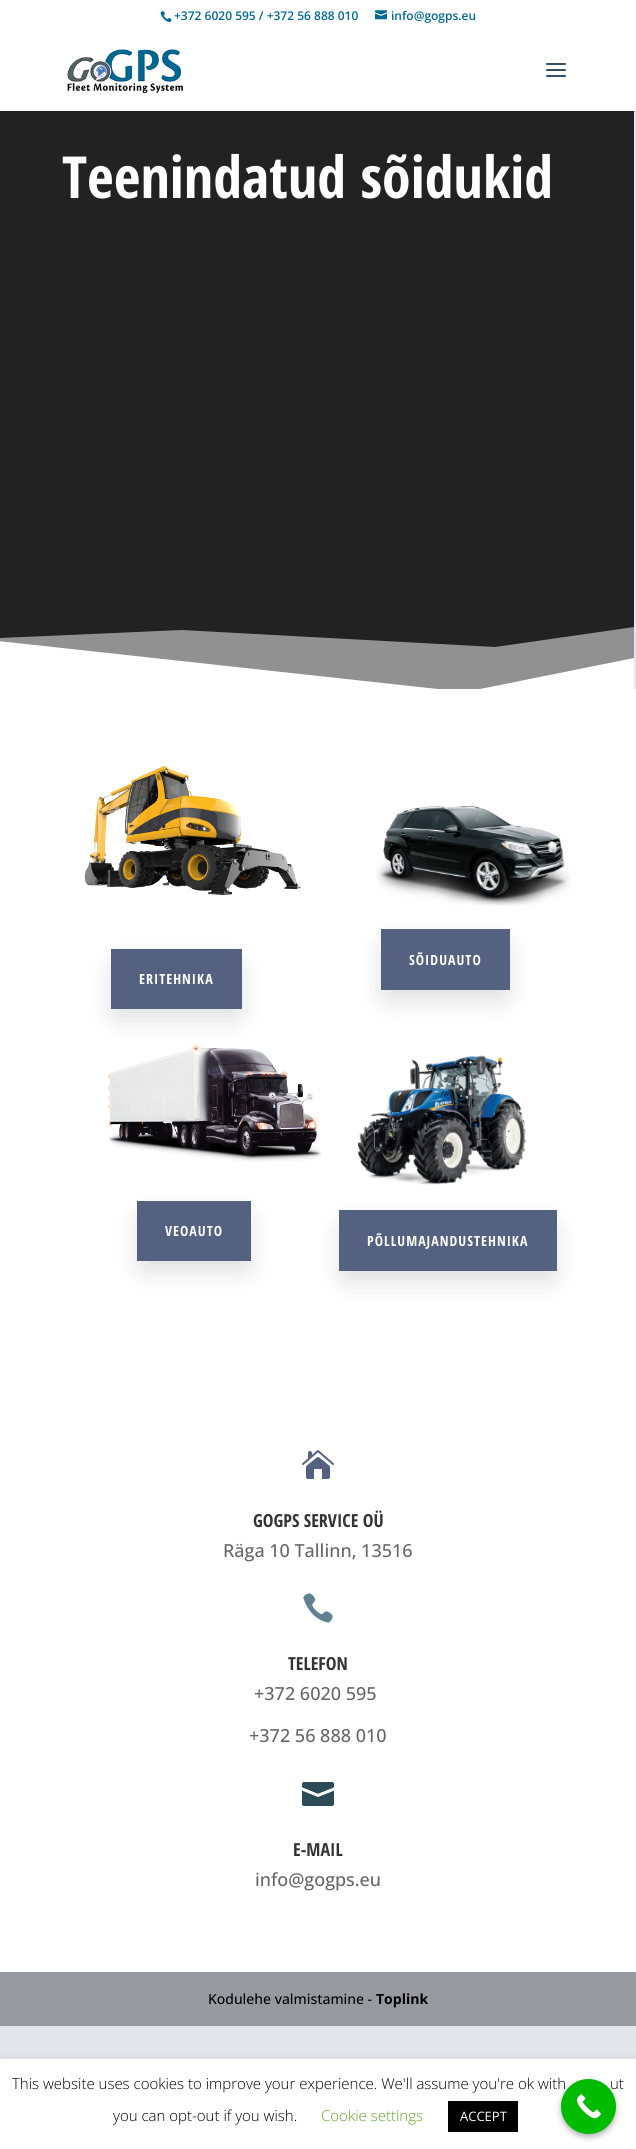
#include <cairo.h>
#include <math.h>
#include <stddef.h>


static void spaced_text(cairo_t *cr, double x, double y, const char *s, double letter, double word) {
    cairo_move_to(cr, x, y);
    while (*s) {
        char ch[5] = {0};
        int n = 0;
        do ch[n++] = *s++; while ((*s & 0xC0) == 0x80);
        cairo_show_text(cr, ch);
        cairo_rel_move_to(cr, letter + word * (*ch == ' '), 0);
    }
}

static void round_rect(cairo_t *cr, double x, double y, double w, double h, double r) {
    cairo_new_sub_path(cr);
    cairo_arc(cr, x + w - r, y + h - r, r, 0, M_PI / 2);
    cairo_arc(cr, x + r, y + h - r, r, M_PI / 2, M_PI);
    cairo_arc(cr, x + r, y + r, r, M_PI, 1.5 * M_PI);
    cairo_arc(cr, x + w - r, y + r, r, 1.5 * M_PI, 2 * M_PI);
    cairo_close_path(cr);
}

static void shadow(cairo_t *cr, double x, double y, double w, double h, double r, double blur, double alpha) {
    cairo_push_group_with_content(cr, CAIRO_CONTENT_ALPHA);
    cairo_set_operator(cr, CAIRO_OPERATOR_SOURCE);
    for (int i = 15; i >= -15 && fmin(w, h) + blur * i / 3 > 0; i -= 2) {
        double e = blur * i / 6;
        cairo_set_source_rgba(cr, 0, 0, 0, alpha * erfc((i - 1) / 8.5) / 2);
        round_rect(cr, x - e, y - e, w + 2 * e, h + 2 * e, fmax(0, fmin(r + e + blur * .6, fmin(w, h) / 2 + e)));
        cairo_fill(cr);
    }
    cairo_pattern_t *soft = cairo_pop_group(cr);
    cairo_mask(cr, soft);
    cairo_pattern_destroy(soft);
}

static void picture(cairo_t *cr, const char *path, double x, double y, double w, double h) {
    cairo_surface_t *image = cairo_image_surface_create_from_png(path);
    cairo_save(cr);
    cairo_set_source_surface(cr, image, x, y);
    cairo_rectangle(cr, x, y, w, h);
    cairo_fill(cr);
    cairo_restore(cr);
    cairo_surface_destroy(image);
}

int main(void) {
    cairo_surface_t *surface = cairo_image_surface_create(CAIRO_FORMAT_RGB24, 636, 2149);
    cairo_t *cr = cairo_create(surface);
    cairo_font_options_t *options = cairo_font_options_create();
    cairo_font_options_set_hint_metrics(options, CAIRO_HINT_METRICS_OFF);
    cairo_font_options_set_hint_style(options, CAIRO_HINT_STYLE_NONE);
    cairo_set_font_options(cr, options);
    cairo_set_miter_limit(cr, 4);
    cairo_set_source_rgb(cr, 0.89, 0.906, 0.925);
    cairo_paint(cr);
    cairo_set_source_rgb(cr, 0.8, 0.816, 0.831);
    cairo_rectangle(cr, 634, 111, 2, 1);
    cairo_fill(cr);
    cairo_set_source_rgb(cr, 1, 1, 1);
    cairo_rectangle(cr, 0, 0, 636, 111);
    cairo_fill(cr);
    picture(cr, "img1.png", 67, 49, 116, 44);
    picture(cr, "img2.png", 546, 63, 20, 14);
    picture(cr, "img3.png", 160, 11, 12, 12);
    cairo_select_font_face(cr, "Open Sans SemiBold", CAIRO_FONT_SLANT_NORMAL, CAIRO_FONT_WEIGHT_NORMAL);
    cairo_set_font_size(cr, 12);
    cairo_set_source_rgb(cr, 0, 0.412, 0.569);
    cairo_move_to(cr, 174, 20);
    cairo_show_text(cr, "+372 6020 595 / +372 56 888 010");
    picture(cr, "img4.png", 375, 10, 12, 10);
    cairo_move_to(cr, 391, 20);
    cairo_show_text(cr, "info@gogps.eu");
    cairo_set_source_rgb(cr, 0.133, 0.133, 0.133);
    cairo_rectangle(cr, 0, 112, 634, 535);
    cairo_fill(cr);
    cairo_set_source_rgb(cr, 0.122, 0.122, 0.122);
    cairo_rectangle(cr, 0, 111, 634, 1);
    cairo_fill(cr);
    cairo_select_font_face(cr, "Open Sans Condensed", CAIRO_FONT_SLANT_NORMAL, CAIRO_FONT_WEIGHT_BOLD);
    cairo_set_font_size(cr, 58);
    cairo_set_source_rgb(cr, 1, 1, 1);
    cairo_move_to(cr, 62, 198);
    cairo_show_text(cr, "Teenindatud sõidukid");
    cairo_set_source_rgb(cr, 0.569, 0.569, 0.569);
    cairo_new_path(cr);
    cairo_move_to(cr, 634, 627);
    cairo_line_to(cr, 495, 647);
    cairo_line_to(cr, 181, 630);
    cairo_line_to(cr, -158, 645);
    cairo_line_to(cr, -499, 617);
    cairo_line_to(cr, -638, 627);
    cairo_line_to(cr, -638, 692);
    cairo_line_to(cr, 634, 692);
    cairo_close_path(cr);
    cairo_fill(cr);
    cairo_set_source_rgb(cr, 1, 1, 1);
    cairo_new_path(cr);
    cairo_move_to(cr, 634, 692);
    cairo_line_to(cr, 634, 658);
    cairo_line_to(cr, 465, 692);
    cairo_line_to(cr, -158, 624);
    cairo_line_to(cr, -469, 630);
    cairo_line_to(cr, -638, 658);
    cairo_line_to(cr, -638, 692);
    cairo_close_path(cr);
    cairo_fill(cr);
    cairo_rectangle(cr, 0, 689, 636, 1283);
    cairo_fill(cr);
    picture(cr, "img5.png", 376, 805, 195, 101);
    cairo_set_source_rgb(cr, 0, 0, 0);
    shadow(cr, 387, 947, 117, 49, 0, 15, 0.16);
    cairo_set_source_rgb(cr, 0.329, 0.38, 0.502);
    cairo_rectangle(cr, 381, 929, 129, 61);
    cairo_fill(cr);
    cairo_set_font_size(cr, 14);
    cairo_set_source_rgb(cr, 1, 1, 1);
    spaced_text(cr, 409, 965, "SÕIDUAUTO", 1, 0);
    picture(cr, "img6.png", 84, 765, 217, 131);
    cairo_set_source_rgb(cr, 0, 0, 0);
    shadow(cr, 117, 967, 119, 48, 0, 15, 0.16);
    cairo_set_source_rgb(cr, 0.329, 0.38, 0.502);
    cairo_rectangle(cr, 111, 949, 131, 60);
    cairo_fill(cr);
    cairo_set_source_rgb(cr, 1, 1, 1);
    spaced_text(cr, 139, 984, "ERITEHNIKA", 1, 0);
    picture(cr, "img7.png", 107, 1044, 215, 118);
    cairo_set_source_rgb(cr, 0, 0, 0);
    shadow(cr, 143, 1219, 102, 48, 0, 15, 0.16);
    cairo_set_source_rgb(cr, 0.329, 0.38, 0.502);
    cairo_rectangle(cr, 137, 1201, 114, 60);
    cairo_fill(cr);
    cairo_set_source_rgb(cr, 1, 1, 1);
    spaced_text(cr, 165, 1236, "VEOAUTO", 1, 0);
    picture(cr, "img8.png", 357, 1055, 170, 130);
    cairo_set_source_rgb(cr, 0, 0, 0);
    shadow(cr, 345, 1228, 206, 49, 0, 15, 0.16);
    cairo_set_source_rgb(cr, 0.329, 0.38, 0.502);
    cairo_rectangle(cr, 339, 1210, 218, 61);
    cairo_fill(cr);
    cairo_set_source_rgb(cr, 1, 1, 1);
    spaced_text(cr, 367, 1246, "PÕLLUMAJANDUSTEHNIKA", 1, 0);
    picture(cr, "img9.png", 302, 1450, 32, 29);
    cairo_set_font_size(cr, 18);
    cairo_set_source_rgb(cr, 0.2, 0.2, 0.2);
    cairo_move_to(cr, 253, 1527);
    cairo_show_text(cr, "GOGPS SERVICE OÜ");
    cairo_select_font_face(cr, "Open Sans Medium", CAIRO_FONT_SLANT_NORMAL, CAIRO_FONT_WEIGHT_NORMAL);
    cairo_set_source_rgb(cr, 0.4, 0.4, 0.4);
    cairo_move_to(cr, 223, 1557);
    cairo_show_text(cr, "Räga 10 Tallinn, 13516");
    picture(cr, "img10.png", 303, 1593, 30, 30);
    cairo_select_font_face(cr, "Open Sans Condensed", CAIRO_FONT_SLANT_NORMAL, CAIRO_FONT_WEIGHT_BOLD);
    cairo_set_source_rgb(cr, 0.2, 0.2, 0.2);
    cairo_move_to(cr, 288, 1670);
    cairo_show_text(cr, "TELEFON");
    cairo_select_font_face(cr, "Open Sans Medium", CAIRO_FONT_SLANT_NORMAL, CAIRO_FONT_WEIGHT_NORMAL);
    cairo_set_source_rgb(cr, 0.4, 0.4, 0.4);
    cairo_move_to(cr, 254, 1700);
    cairo_show_text(cr, "+372 6020 595");
    cairo_move_to(cr, 249, 1742);
    cairo_show_text(cr, "+372 56 888 010");
    picture(cr, "img11.png", 302, 1782, 32, 24);
    cairo_select_font_face(cr, "Open Sans Condensed", CAIRO_FONT_SLANT_NORMAL, CAIRO_FONT_WEIGHT_BOLD);
    cairo_set_source_rgb(cr, 0.2, 0.2, 0.2);
    cairo_move_to(cr, 293, 1856);
    cairo_show_text(cr, "E-MAIL");
    cairo_select_font_face(cr, "Open Sans Medium", CAIRO_FONT_SLANT_NORMAL, CAIRO_FONT_WEIGHT_NORMAL);
    cairo_set_source_rgb(cr, 0.4, 0.4, 0.4);
    cairo_move_to(cr, 255, 1886);
    cairo_show_text(cr, "info@gogps.eu");
    cairo_set_source_rgb(cr, 0.592, 0.608, 0.627);
    cairo_rectangle(cr, 0, 1972, 636, 54);
    cairo_fill(cr);
    cairo_set_font_size(cr, 14);
    cairo_set_source_rgb(cr, 0, 0, 0);
    cairo_move_to(cr, 208, 2004);
    cairo_show_text(cr, "Kodulehe valmistamine -");
    cairo_select_font_face(cr, "Open Sans", CAIRO_FONT_SLANT_NORMAL, CAIRO_FONT_WEIGHT_BOLD);
    cairo_move_to(cr, 376, 2004);
    cairo_show_text(cr, "Toplink");
    cairo_set_source_rgb(cr, 0.675, 0.671, 0.671);
    shadow(cr, 0, 2058, 636, 90, 0, 5, 0.3);
    cairo_set_source_rgb(cr, 1, 1, 1);
    cairo_rectangle(cr, 0, 2059, 636, 90);
    cairo_fill(cr);
    cairo_set_source_rgb(cr, 0, 0, 0);
    shadow(cr, 561, 2082, 55, 55, 27.5, 3, 0.3);
    cairo_select_font_face(cr, "Open Sans Light", CAIRO_FONT_SLANT_NORMAL, CAIRO_FONT_WEIGHT_NORMAL);
    cairo_set_font_size(cr, 15);
    cairo_set_source_rgb(cr, 0, 0, 0);
    cairo_move_to(cr, 12, 2089);
    cairo_show_text(cr, "This website uses cookies to improve your experience. We'll assume you're ok with");
    cairo_move_to(cr, 610, 2089);
    cairo_show_text(cr, "ut");
    cairo_set_source_rgb(cr, 0, 0.733, 0);
    cairo_new_path(cr);
    cairo_arc(cr, 588.5, 2106.5, 27.5, 0, 2 * M_PI);
    cairo_fill(cr);
    picture(cr, "img12.png", 576, 2094, 25, 25);
    cairo_set_source_rgb(cr, 0, 0, 0);
    cairo_move_to(cr, 113, 2121);
    cairo_show_text(cr, "you can opt-out if you wish.");
    cairo_set_source_rgb(cr, 0.384, 0.639, 0.161);
    cairo_move_to(cr, 321, 2121);
    cairo_show_text(cr, "Cookie settings");
    cairo_set_source_rgb(cr, 0, 0, 0);
    cairo_rectangle(cr, 448, 2101, 70, 31);
    cairo_fill(cr);
    cairo_select_font_face(cr, "Open Sans", CAIRO_FONT_SLANT_NORMAL, CAIRO_FONT_WEIGHT_NORMAL);
    cairo_set_font_size(cr, 13);
    cairo_set_source_rgb(cr, 1, 1, 1);
    cairo_move_to(cr, 460, 2121);
    cairo_show_text(cr, "ACCEPT");
    cairo_surface_write_to_png(surface, "page.png");
    cairo_font_options_destroy(options);
    cairo_destroy(cr);
    cairo_surface_destroy(surface);
    return 0;
}
